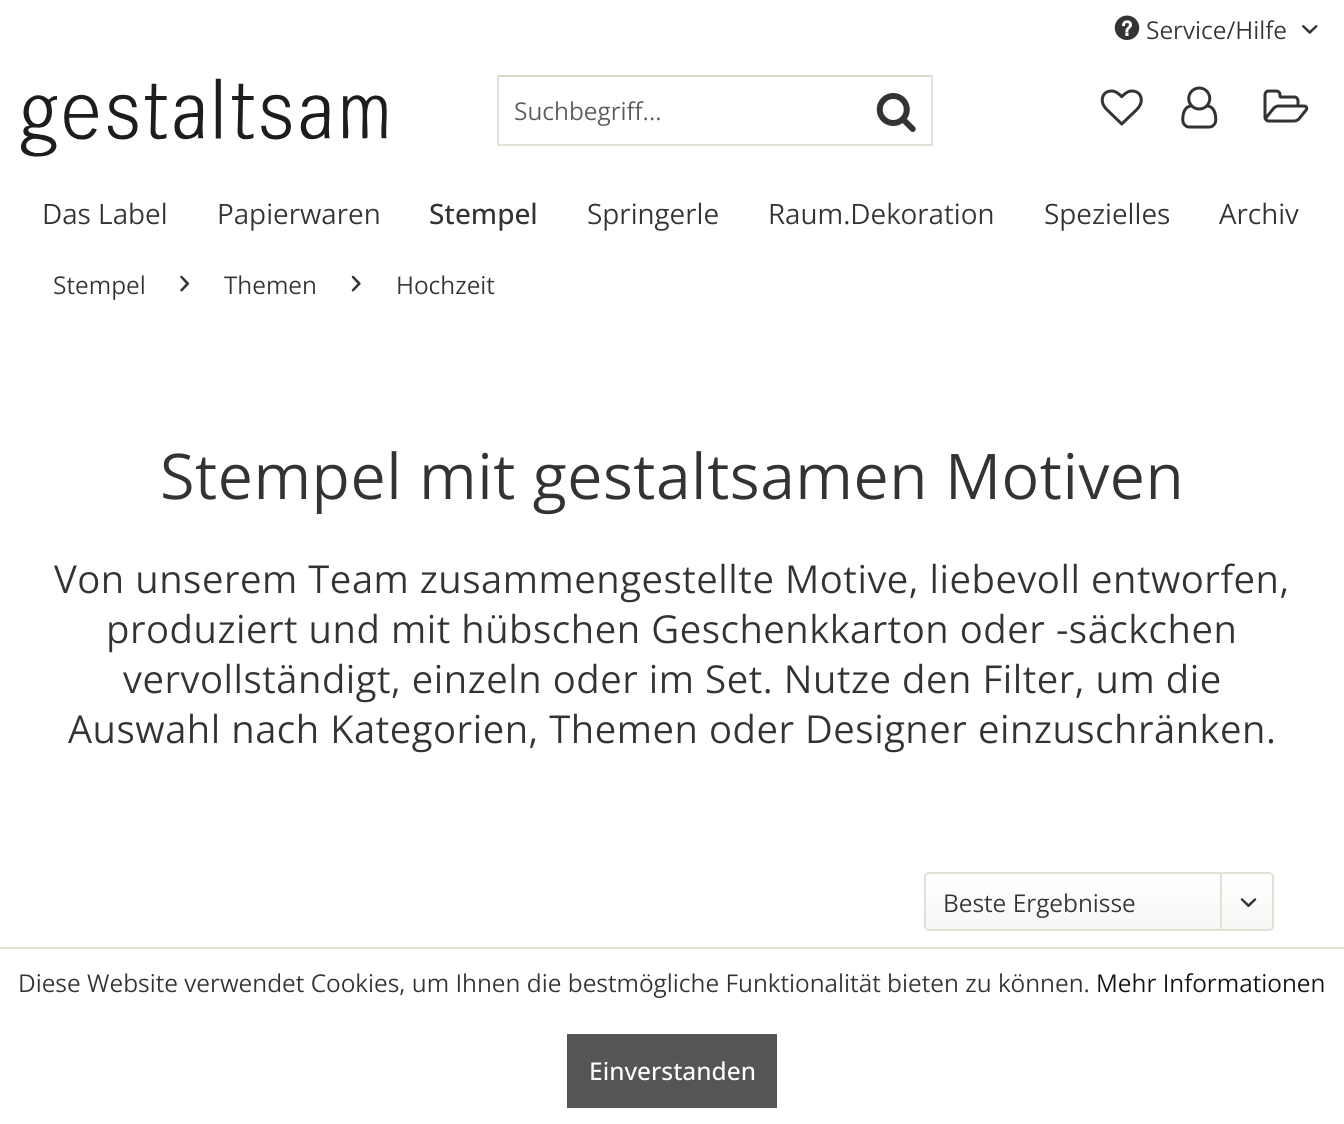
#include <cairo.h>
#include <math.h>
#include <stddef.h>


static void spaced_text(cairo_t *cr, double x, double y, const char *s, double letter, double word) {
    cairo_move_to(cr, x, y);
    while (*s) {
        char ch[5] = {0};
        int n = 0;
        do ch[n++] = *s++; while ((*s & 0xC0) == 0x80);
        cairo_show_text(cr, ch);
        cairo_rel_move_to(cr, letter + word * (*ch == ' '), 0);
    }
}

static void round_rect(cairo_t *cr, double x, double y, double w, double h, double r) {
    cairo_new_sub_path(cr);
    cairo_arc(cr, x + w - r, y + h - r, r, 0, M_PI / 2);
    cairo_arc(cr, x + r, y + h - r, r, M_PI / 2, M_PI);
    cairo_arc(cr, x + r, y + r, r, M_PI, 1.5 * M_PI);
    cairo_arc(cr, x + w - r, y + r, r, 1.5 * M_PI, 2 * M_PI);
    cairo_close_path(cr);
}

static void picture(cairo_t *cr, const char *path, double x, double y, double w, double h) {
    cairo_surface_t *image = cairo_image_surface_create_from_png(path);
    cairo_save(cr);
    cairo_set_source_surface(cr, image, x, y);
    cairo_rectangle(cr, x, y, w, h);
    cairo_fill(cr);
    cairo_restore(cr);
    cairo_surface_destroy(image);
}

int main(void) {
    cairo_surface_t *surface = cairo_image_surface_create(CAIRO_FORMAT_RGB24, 1344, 1124);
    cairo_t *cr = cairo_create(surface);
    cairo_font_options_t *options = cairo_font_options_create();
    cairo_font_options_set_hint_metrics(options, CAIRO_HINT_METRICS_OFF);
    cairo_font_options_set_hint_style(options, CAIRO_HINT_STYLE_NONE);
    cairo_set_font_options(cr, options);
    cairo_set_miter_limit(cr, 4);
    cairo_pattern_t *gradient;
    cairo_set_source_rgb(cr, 1, 1, 1);
    cairo_paint(cr);
    picture(cr, "img1.png", 1114, 15, 26, 25);
    cairo_select_font_face(cr, "Open Sans", CAIRO_FONT_SLANT_NORMAL, CAIRO_FONT_WEIGHT_NORMAL);
    cairo_set_font_size(cr, 24.5);
    cairo_set_source_rgb(cr, 0.2, 0.2, 0.2);
    cairo_move_to(cr, 1146, 39);
    cairo_show_text(cr, "Service/Hilfe");
    picture(cr, "img2.png", 1302, 25, 16, 9);
    picture(cr, "img3.png", 21, 78, 366, 79);
    cairo_set_source_rgb(cr, 0.839, 0.839, 0.792);
    cairo_rectangle(cr, 497, 75, 436, 2);
    cairo_fill(cr);
    cairo_set_source_rgb(cr, 0.882, 0.882, 0.847);
    cairo_rectangle(cr, 931, 75, 2, 70);
    cairo_fill(cr);
    cairo_rectangle(cr, 497, 144, 436, 2);
    cairo_fill(cr);
    cairo_rectangle(cr, 497, 75, 2, 70);
    cairo_fill(cr);
    cairo_set_source_rgb(cr, 0.349, 0.349, 0.349);
    cairo_move_to(cr, 514, 120);
    cairo_show_text(cr, "Suchbegriff...");
    picture(cr, "img4.png", 876, 93, 40, 39);
    picture(cr, "img5.png", 1100, 89, 43, 37);
    picture(cr, "img6.png", 1181, 86, 37, 43);
    picture(cr, "img7.png", 1263, 89, 46, 34);
    cairo_set_font_size(cr, 28);
    cairo_set_source_rgb(cr, 0.2, 0.2, 0.2);
    cairo_move_to(cr, 42, 224);
    cairo_show_text(cr, "Das Label");
    cairo_move_to(cr, 217, 224);
    cairo_show_text(cr, "Papierwaren");
    cairo_select_font_face(cr, "Open Sans Medium", CAIRO_FONT_SLANT_NORMAL, CAIRO_FONT_WEIGHT_NORMAL);
    cairo_move_to(cr, 429, 224);
    cairo_show_text(cr, "Stempel");
    cairo_select_font_face(cr, "Open Sans", CAIRO_FONT_SLANT_NORMAL, CAIRO_FONT_WEIGHT_NORMAL);
    cairo_move_to(cr, 587, 224);
    cairo_show_text(cr, "Springerle");
    cairo_move_to(cr, 768, 224);
    cairo_show_text(cr, "Raum.Dekoration");
    cairo_move_to(cr, 1044, 224);
    cairo_show_text(cr, "Spezielles");
    cairo_move_to(cr, 1219, 224);
    cairo_show_text(cr, "Archiv");
    cairo_set_font_size(cr, 24.5);
    cairo_move_to(cr, 53, 294);
    cairo_show_text(cr, "Stempel");
    picture(cr, "img8.png", 180, 275, 10, 17);
    cairo_move_to(cr, 224, 294);
    cairo_show_text(cr, "Themen");
    picture(cr, "img9.png", 351, 275, 10, 17);
    cairo_move_to(cr, 396, 294);
    cairo_show_text(cr, "Hochzeit");
    cairo_set_font_size(cr, 63);
    spaced_text(cr, 160, 499, "Stempel mit gestaltsamen Motiven", 0.53, 0);
    cairo_set_font_size(cr, 38.5);
    spaced_text(cr, 54, 593, "Von unserem Team zusammengestellte Motive, liebevoll entworfen,", 0.53, 0);
    spaced_text(cr, 106, 643, "produziert und mit hübschen Geschenkkarton oder -säckchen", 0.53, 0);
    spaced_text(cr, 123, 693, "vervollständigt, einzeln oder im Set. Nutze den Filter, um die", 0.53, 0);
    spaced_text(cr, 68, 743, "Auswahl nach Kategorien, Themen oder Designer einzuschränken.", 0.53, 0);
    gradient = cairo_pattern_create_linear(1099, 873, 1099, 929);
    cairo_pattern_add_color_stop_rgba(gradient, 0, 1, 1, 1, 1);
    cairo_pattern_add_color_stop_rgba(gradient, 1, 0.969, 0.969, 0.961, 1);
    cairo_set_source(cr, gradient);
    cairo_pattern_destroy(gradient);
    round_rect(cr, 926, 873, 346, 56, 4);
    cairo_fill(cr);
    round_rect(cr, 925, 873, 348, 57, 4);
    cairo_set_source_rgb(cr, 0.882, 0.882, 0.847);
    cairo_stroke(cr);
    cairo_set_font_size(cr, 24.5);
    cairo_set_source_rgb(cr, 0.2, 0.2, 0.2);
    cairo_move_to(cr, 943, 912);
    cairo_show_text(cr, "Beste Ergebnisse");
    cairo_set_source_rgb(cr, 0.882, 0.882, 0.847);
    cairo_rectangle(cr, 1220, 873, 2, 58);
    cairo_fill(cr);
    picture(cr, "img10.png", 1240, 898, 17, 9);
    cairo_rectangle(cr, 0, 947, 1344, 2);
    cairo_fill(cr);
    cairo_set_source_rgb(cr, 0.2, 0.2, 0.2);
    cairo_move_to(cr, 18, 992);
    cairo_show_text(cr, "Diese Website verwendet Cookies, um Ihnen die bestmögliche Funktionalität bieten zu können.");
    cairo_set_source_rgb(cr, 0.067, 0.067, 0.067);
    cairo_move_to(cr, 1096, 992);
    cairo_show_text(cr, "Mehr Informationen");
    cairo_set_source_rgb(cr, 0.333, 0.333, 0.333);
    cairo_rectangle(cr, 567, 1034, 210, 74);
    cairo_fill(cr);
    cairo_select_font_face(cr, "Open Sans Medium", CAIRO_FONT_SLANT_NORMAL, CAIRO_FONT_WEIGHT_NORMAL);
    cairo_set_source_rgb(cr, 1, 1, 1);
    cairo_move_to(cr, 589, 1080);
    cairo_show_text(cr, "Einverstanden");
    cairo_surface_write_to_png(surface, "page.png");
    cairo_font_options_destroy(options);
    cairo_destroy(cr);
    cairo_surface_destroy(surface);
    return 0;
}
